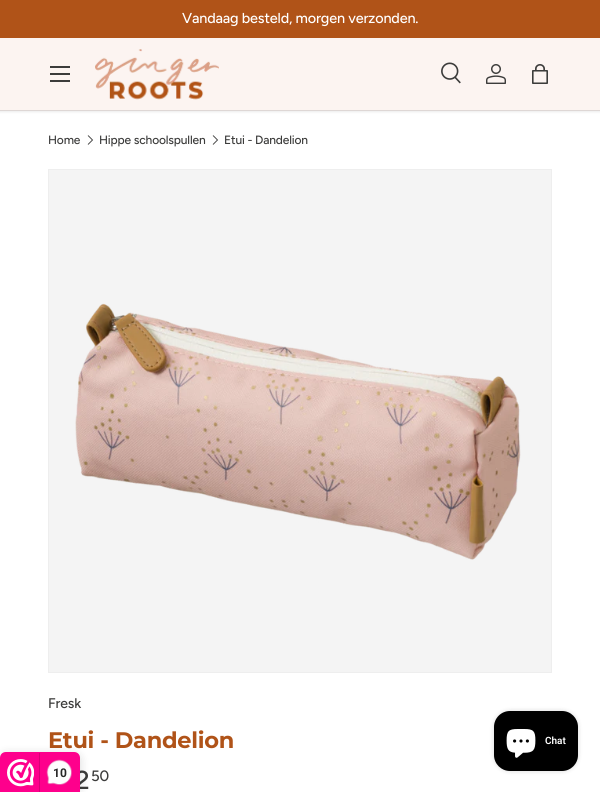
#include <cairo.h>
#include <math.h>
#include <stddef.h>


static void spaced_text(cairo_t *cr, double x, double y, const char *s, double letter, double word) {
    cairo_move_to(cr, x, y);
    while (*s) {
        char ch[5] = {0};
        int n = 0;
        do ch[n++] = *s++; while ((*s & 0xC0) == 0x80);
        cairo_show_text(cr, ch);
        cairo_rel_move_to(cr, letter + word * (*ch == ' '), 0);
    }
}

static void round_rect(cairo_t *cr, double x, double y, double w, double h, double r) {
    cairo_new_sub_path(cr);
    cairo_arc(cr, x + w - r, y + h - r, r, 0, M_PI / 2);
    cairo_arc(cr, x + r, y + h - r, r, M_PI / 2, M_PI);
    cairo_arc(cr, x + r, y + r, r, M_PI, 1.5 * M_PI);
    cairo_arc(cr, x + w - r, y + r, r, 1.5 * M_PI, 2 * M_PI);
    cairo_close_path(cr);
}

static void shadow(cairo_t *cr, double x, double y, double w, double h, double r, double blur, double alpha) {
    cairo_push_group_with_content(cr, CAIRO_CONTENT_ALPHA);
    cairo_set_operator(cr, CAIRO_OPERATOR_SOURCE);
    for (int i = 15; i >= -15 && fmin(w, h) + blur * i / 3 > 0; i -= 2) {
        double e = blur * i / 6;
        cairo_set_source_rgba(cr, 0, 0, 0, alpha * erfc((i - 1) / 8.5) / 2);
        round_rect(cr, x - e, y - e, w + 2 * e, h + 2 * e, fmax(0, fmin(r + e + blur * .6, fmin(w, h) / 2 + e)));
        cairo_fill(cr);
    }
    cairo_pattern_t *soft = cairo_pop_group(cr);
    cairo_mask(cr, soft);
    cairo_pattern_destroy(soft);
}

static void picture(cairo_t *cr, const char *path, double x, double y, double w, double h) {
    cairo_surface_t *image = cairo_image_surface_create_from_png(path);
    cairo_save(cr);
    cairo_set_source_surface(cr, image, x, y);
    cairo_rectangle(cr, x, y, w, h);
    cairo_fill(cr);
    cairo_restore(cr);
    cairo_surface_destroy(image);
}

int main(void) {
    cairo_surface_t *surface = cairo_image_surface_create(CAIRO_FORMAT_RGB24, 600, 792);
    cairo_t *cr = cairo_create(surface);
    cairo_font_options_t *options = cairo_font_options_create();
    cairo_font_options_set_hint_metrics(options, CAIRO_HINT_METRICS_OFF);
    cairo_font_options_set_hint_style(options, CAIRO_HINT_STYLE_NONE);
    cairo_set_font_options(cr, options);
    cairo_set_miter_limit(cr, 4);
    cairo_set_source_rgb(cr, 1, 1, 1);
    cairo_paint(cr);
    cairo_set_source_rgb(cr, 0, 0, 0);
    shadow(cr, -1, 37, 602, 75, 0, 1.5, 0.08);
    cairo_set_source_rgb(cr, 0.69, 0.325, 0.094);
    cairo_rectangle(cr, 0, 0, 600, 38);
    cairo_fill(cr);
    cairo_select_font_face(cr, "Figtree Medium", CAIRO_FONT_SLANT_NORMAL, CAIRO_FONT_WEIGHT_NORMAL);
    cairo_set_font_size(cr, 14.4);
    cairo_set_source_rgb(cr, 1, 1, 1);
    spaced_text(cr, 182, 23, "Vandaag besteld, morgen verzonden.", -0.15, 0);
    cairo_set_source_rgb(cr, 0.988, 0.957, 0.945);
    cairo_rectangle(cr, 0, 38, 600, 72);
    cairo_fill(cr);
    cairo_set_source_rgb(cr, 0.235, 0.235, 0.231);
    cairo_rectangle(cr, 50, 66, 20, 2);
    cairo_fill(cr);
    cairo_rectangle(cr, 50, 80, 20, 2);
    cairo_fill(cr);
    cairo_rectangle(cr, 50, 73, 20, 2);
    cairo_fill(cr);
    picture(cr, "img1.png", 95, 49, 124, 51);
    picture(cr, "img2.png", 441, 62, 20, 22);
    picture(cr, "img3.png", 486, 64, 20, 20);
    picture(cr, "img4.png", 532, 64, 16, 20);
    cairo_set_source_rgb(cr, 0.871, 0.843, 0.835);
    cairo_rectangle(cr, 0, 110, 600, 1);
    cairo_fill(cr);
    cairo_set_font_size(cr, 12);
    cairo_set_source_rgb(cr, 0.235, 0.235, 0.231);
    spaced_text(cr, 48, 144, "Home", -0.15, 0);
    cairo_new_path(cr);
    cairo_move_to(cr, 88, 135.5);
    cairo_line_to(cr, 92.5, 140);
    cairo_line_to(cr, 88, 144.5);
    cairo_set_line_width(cr, 0.9);
    cairo_stroke(cr);
    spaced_text(cr, 99, 144, "Hippe schoolspullen", -0.15, 0);
    cairo_new_path(cr);
    cairo_move_to(cr, 213, 135.5);
    cairo_line_to(cr, 217.5, 140);
    cairo_line_to(cr, 213, 144.5);
    cairo_stroke(cr);
    spaced_text(cr, 224, 144, "Etui - Dandelion", -0.15, 0);
    cairo_set_source_rgb(cr, 0.957, 0.957, 0.957);
    cairo_rectangle(cr, 48.5, 169.5, 503, 503);
    cairo_fill_preserve(cr);
    cairo_set_source_rgb(cr, 0.933, 0.933, 0.933);
    cairo_set_line_width(cr, 1);
    cairo_stroke(cr);
    picture(cr, "img5.png", 75, 303, 446, 257);
    cairo_set_font_size(cr, 14);
    cairo_set_source_rgb(cr, 0.235, 0.235, 0.231);
    spaced_text(cr, 48, 708, "Fresk", -0.15, 0);
    cairo_select_font_face(cr, "Montserrat", CAIRO_FONT_SLANT_NORMAL, CAIRO_FONT_WEIGHT_BOLD);
    cairo_set_font_size(cr, 22.5);
    cairo_set_source_rgb(cr, 0.69, 0.325, 0.094);
    spaced_text(cr, 48, 748, "Etui - Dandelion", -0.25, 0);
    cairo_select_font_face(cr, "Figtree Medium", CAIRO_FONT_SLANT_NORMAL, CAIRO_FONT_WEIGHT_NORMAL);
    cairo_set_font_size(cr, 26);
    cairo_set_source_rgb(cr, 0.235, 0.235, 0.231);
    spaced_text(cr, 75, 789, "2", -0.15, 0);
    cairo_set_font_size(cr, 15);
    spaced_text(cr, 91, 781, "50", -0.15, 0);
    cairo_set_source_rgb(cr, 0, 0, 0);
    shadow(cr, 494, 711, 84, 60, 16, 2.5, 0.15);
    cairo_set_source_rgb(cr, 0, 0, 0);
    round_rect(cr, 494, 711, 84, 60, 16);
    cairo_fill(cr);
    picture(cr, "img6.png", 506, 729, 30, 29);
    cairo_select_font_face(cr, "Roboto SemiBold", CAIRO_FONT_SLANT_NORMAL, CAIRO_FONT_WEIGHT_NORMAL);
    cairo_set_font_size(cr, 10);
    cairo_set_source_rgb(cr, 1, 1, 1);
    cairo_move_to(cr, 545, 744);
    cairo_show_text(cr, "Chat");
    cairo_set_source_rgb(cr, 0, 0, 0);
    shadow(cr, 0, 754, 80, 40, 6, 5, 0.15);
    cairo_set_source_rgb(cr, 0.996, 0, 0.549);
    cairo_new_path(cr);
    cairo_move_to(cr, 6, 752);
    cairo_line_to(cr, 74, 752);
    cairo_curve_to(cr, 77.5, 752, 80, 754.5, 80, 758);
    cairo_line_to(cr, 80, 792);
    cairo_line_to(cr, 0, 792);
    cairo_line_to(cr, 0, 758);
    cairo_curve_to(cr, 0, 754.5, 2.5, 752, 6, 752);
    cairo_close_path(cr);
    cairo_fill(cr);
    picture(cr, "img7.png", 7, 759, 27, 28);
    cairo_set_source_rgb(cr, 0.847, 0, 0.467);
    cairo_rectangle(cr, 39, 753, 1, 39);
    cairo_fill(cr);
    picture(cr, "img8.png", 46, 759, 26, 26);
    cairo_select_font_face(cr, "Roboto", CAIRO_FONT_SLANT_NORMAL, CAIRO_FONT_WEIGHT_BOLD);
    cairo_set_font_size(cr, 12);
    cairo_set_source_rgb(cr, 0.153, 0.149, 0.149);
    cairo_move_to(cr, 53, 777);
    cairo_show_text(cr, "10");
    cairo_surface_write_to_png(surface, "page.png");
    cairo_font_options_destroy(options);
    cairo_destroy(cr);
    cairo_surface_destroy(surface);
    return 0;
}
